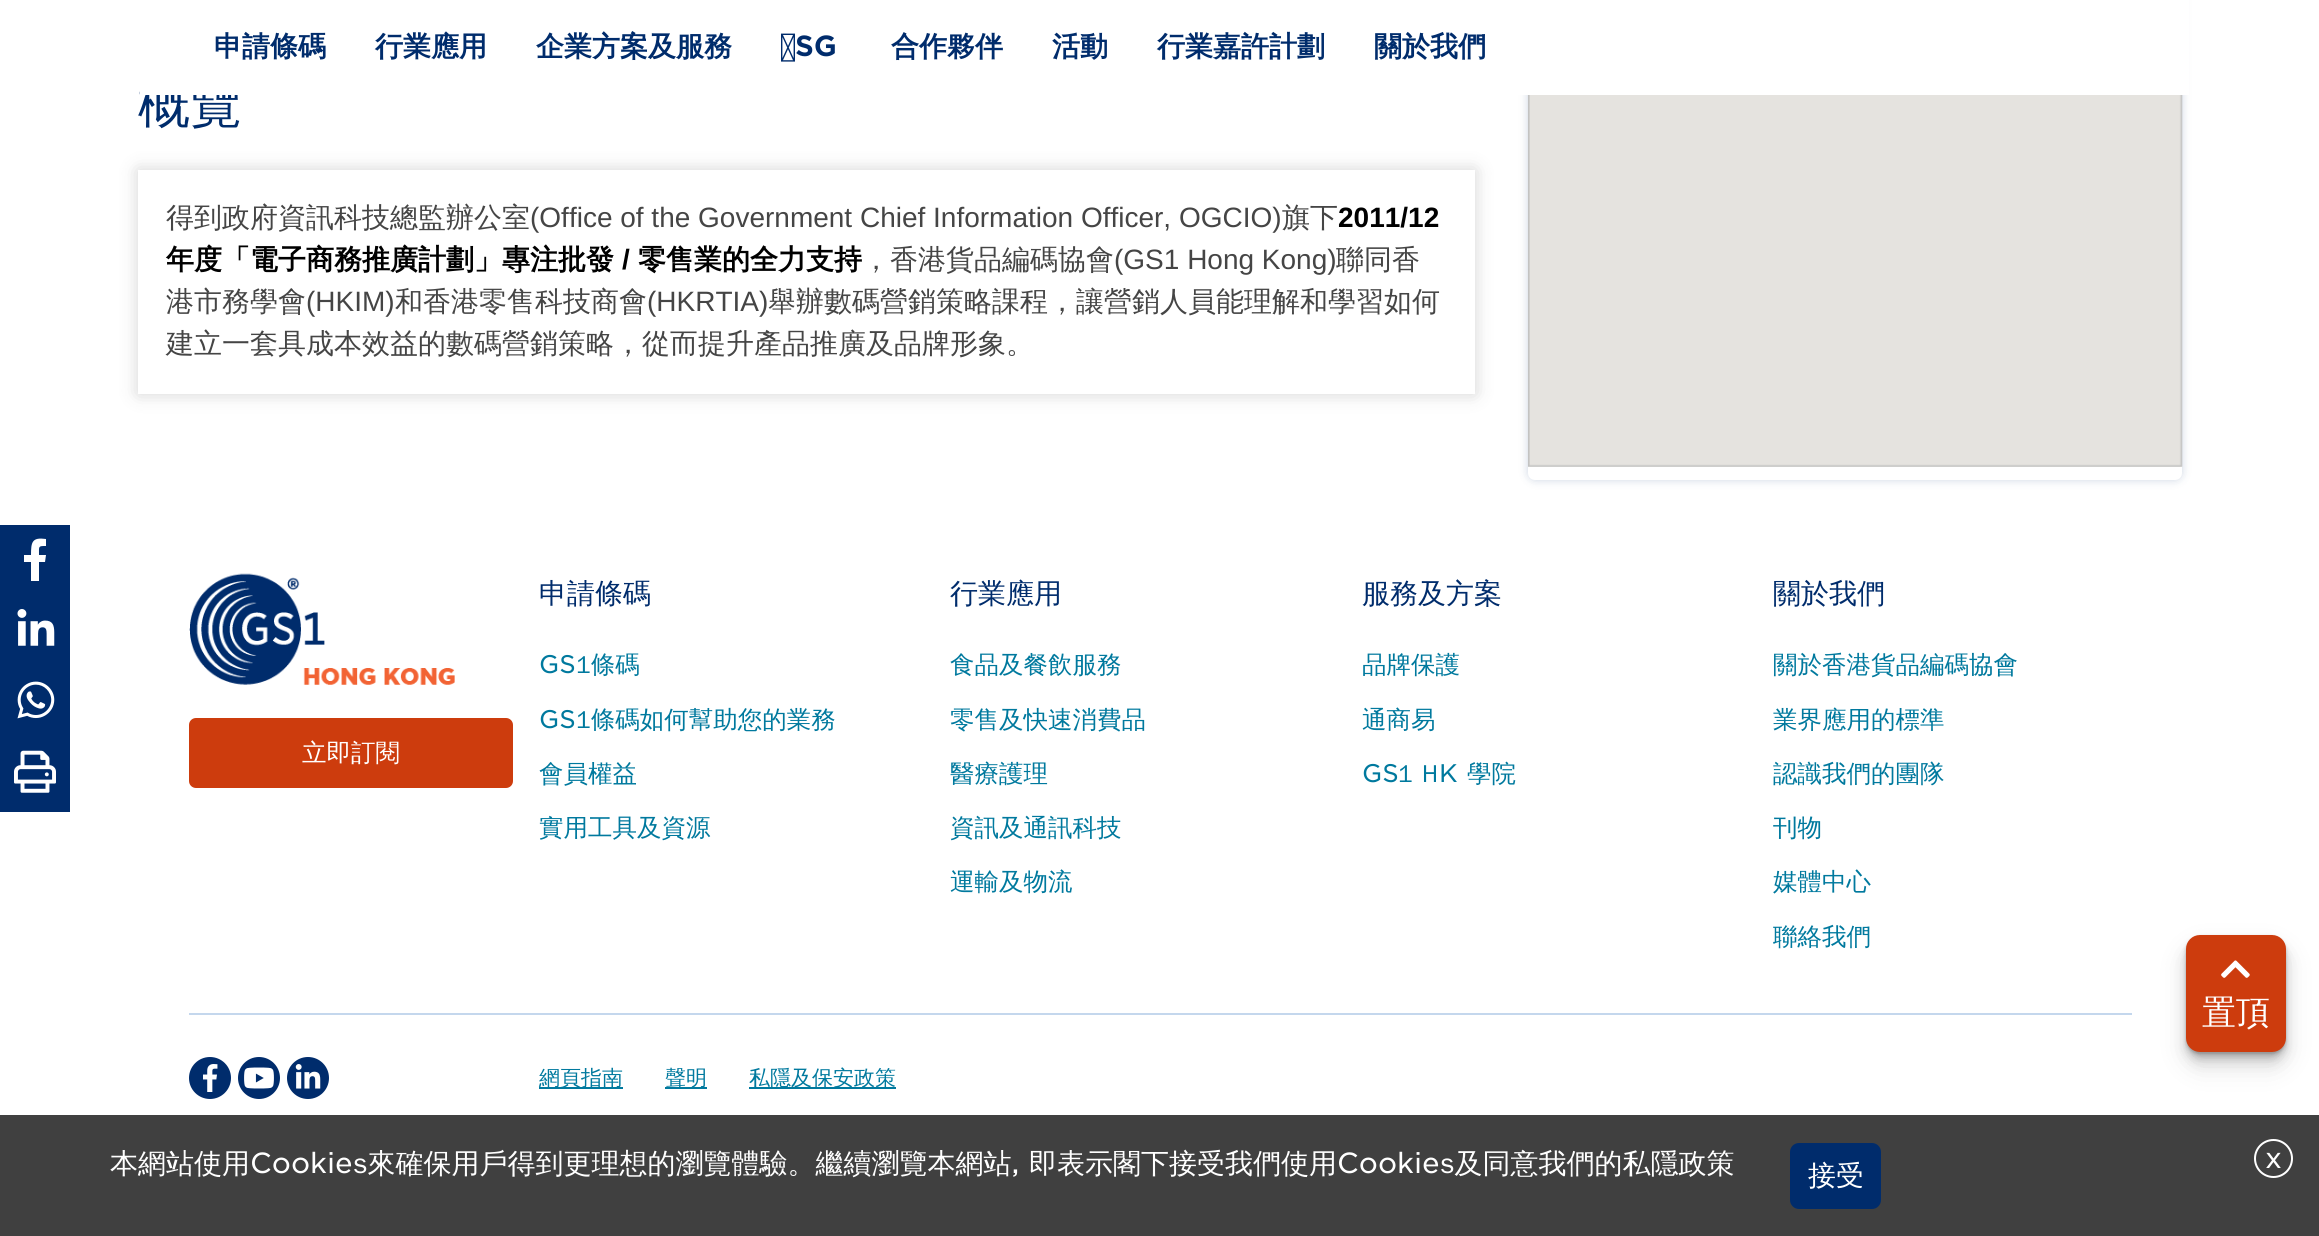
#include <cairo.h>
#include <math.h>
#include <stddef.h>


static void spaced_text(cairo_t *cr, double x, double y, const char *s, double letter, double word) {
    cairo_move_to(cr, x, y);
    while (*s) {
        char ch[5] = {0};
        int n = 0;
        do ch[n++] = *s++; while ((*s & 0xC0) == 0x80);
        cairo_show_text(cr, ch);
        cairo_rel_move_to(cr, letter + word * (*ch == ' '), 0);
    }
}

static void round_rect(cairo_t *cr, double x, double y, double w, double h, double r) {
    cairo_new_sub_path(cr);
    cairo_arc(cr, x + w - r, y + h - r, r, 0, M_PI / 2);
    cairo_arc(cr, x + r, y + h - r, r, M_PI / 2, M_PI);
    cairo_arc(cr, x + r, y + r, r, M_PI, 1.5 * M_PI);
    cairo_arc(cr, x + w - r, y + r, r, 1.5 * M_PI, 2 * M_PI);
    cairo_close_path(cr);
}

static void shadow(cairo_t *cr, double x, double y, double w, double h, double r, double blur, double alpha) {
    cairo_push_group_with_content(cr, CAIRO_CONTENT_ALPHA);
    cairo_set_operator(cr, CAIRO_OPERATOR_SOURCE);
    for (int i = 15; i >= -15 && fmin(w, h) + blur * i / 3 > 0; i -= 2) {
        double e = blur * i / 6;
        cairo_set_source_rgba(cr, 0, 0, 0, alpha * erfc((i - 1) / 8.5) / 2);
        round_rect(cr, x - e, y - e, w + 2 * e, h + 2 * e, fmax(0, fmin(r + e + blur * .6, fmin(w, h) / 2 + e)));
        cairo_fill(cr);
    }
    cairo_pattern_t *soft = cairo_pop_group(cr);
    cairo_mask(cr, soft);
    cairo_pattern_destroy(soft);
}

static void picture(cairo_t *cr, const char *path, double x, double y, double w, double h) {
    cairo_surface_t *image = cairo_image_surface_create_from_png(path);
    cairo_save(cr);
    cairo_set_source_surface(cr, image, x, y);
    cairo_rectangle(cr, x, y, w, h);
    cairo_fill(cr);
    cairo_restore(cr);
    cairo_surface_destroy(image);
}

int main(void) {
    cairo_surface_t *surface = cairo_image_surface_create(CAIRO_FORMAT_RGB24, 2319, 1236);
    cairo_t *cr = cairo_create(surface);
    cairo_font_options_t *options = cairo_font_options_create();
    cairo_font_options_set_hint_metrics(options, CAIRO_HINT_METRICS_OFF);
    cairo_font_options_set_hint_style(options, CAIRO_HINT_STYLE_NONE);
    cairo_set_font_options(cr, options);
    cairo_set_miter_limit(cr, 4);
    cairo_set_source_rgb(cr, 1, 1, 1);
    cairo_paint(cr);
    cairo_select_font_face(cr, "WenQuanYi Zen Hei Medium", CAIRO_FONT_SLANT_NORMAL, CAIRO_FONT_WEIGHT_NORMAL);
    cairo_set_font_size(cr, 52);
    cairo_set_source_rgb(cr, 0, 0.173, 0.424);
    cairo_move_to(cr, 138, 122);
    cairo_show_text(cr, "概覽");
    cairo_set_source_rgb(cr, 0, 0.173, 0.424);
    shadow(cr, 1528, -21, 654, 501, 7, 4.5, 0.2);
    cairo_set_source_rgb(cr, 1, 1, 1);
    round_rect(cr, 1528, -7, 654, 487, 7);
    cairo_fill(cr);
    cairo_rectangle(cr, 140, 0, 2049, 95);
    cairo_fill(cr);
    cairo_select_font_face(cr, "WenQuanYi Zen Hei", CAIRO_FONT_SLANT_NORMAL, CAIRO_FONT_WEIGHT_BOLD);
    cairo_set_font_size(cr, 28);
    cairo_set_source_rgb(cr, 0, 0.173, 0.424);
    cairo_move_to(cr, 214, 56);
    cairo_show_text(cr, "申請條碼");
    cairo_move_to(cr, 375, 56);
    cairo_show_text(cr, "行業應用");
    cairo_move_to(cr, 536, 56);
    cairo_show_text(cr, "企業方案及服務");
    cairo_select_font_face(cr, "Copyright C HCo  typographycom", CAIRO_FONT_SLANT_NORMAL, CAIRO_FONT_WEIGHT_NORMAL);
    cairo_move_to(cr, 781, 56);
    cairo_show_text(cr, "ESG");
    cairo_select_font_face(cr, "WenQuanYi Zen Hei", CAIRO_FONT_SLANT_NORMAL, CAIRO_FONT_WEIGHT_BOLD);
    cairo_move_to(cr, 891, 56);
    cairo_show_text(cr, "合作夥伴");
    cairo_move_to(cr, 1052, 56);
    cairo_show_text(cr, "活動");
    cairo_move_to(cr, 1157, 56);
    cairo_show_text(cr, "行業嘉許計劃");
    cairo_move_to(cr, 1374, 56);
    cairo_show_text(cr, "關於我們");
    cairo_set_source_rgb(cr, 0, 0, 0);
    shadow(cr, 138, 170, 1337, 224, 0, 9, 0.17);
    cairo_set_source_rgb(cr, 1, 1, 1);
    cairo_rectangle(cr, 138, 170, 1337, 224);
    cairo_fill(cr);
    cairo_select_font_face(cr, "WenQuanYi Zen Hei Medium", CAIRO_FONT_SLANT_NORMAL, CAIRO_FONT_WEIGHT_NORMAL);
    cairo_set_source_rgb(cr, 0.271, 0.271, 0.271);
    cairo_move_to(cr, 166, 227);
    cairo_show_text(cr, "得到政府資訊科技總監辦公室");
    cairo_select_font_face(cr, "Liberation Sans", CAIRO_FONT_SLANT_NORMAL, CAIRO_FONT_WEIGHT_NORMAL);
    cairo_move_to(cr, 530, 227);
    cairo_show_text(cr, "(Office of the Government Chief Information Officer, OGCIO)");
    cairo_select_font_face(cr, "WenQuanYi Zen Hei Medium", CAIRO_FONT_SLANT_NORMAL, CAIRO_FONT_WEIGHT_NORMAL);
    cairo_move_to(cr, 1282, 227);
    cairo_show_text(cr, "旗下");
    cairo_select_font_face(cr, "Liberation Sans", CAIRO_FONT_SLANT_NORMAL, CAIRO_FONT_WEIGHT_BOLD);
    cairo_set_source_rgb(cr, 0, 0, 0);
    cairo_move_to(cr, 1338, 227);
    cairo_show_text(cr, "2011/12");
    cairo_select_font_face(cr, "WenQuanYi Zen Hei", CAIRO_FONT_SLANT_NORMAL, CAIRO_FONT_WEIGHT_BOLD);
    cairo_move_to(cr, 166, 269);
    cairo_show_text(cr, "年度「電子商務推廣計劃」專注批發");
    cairo_select_font_face(cr, "Liberation Sans", CAIRO_FONT_SLANT_NORMAL, CAIRO_FONT_WEIGHT_BOLD);
    cairo_move_to(cr, 622, 269);
    cairo_show_text(cr, "/");
    cairo_select_font_face(cr, "WenQuanYi Zen Hei", CAIRO_FONT_SLANT_NORMAL, CAIRO_FONT_WEIGHT_BOLD);
    cairo_move_to(cr, 638, 269);
    cairo_show_text(cr, "零售業的全力支持");
    cairo_select_font_face(cr, "WenQuanYi Zen Hei Medium", CAIRO_FONT_SLANT_NORMAL, CAIRO_FONT_WEIGHT_NORMAL);
    cairo_set_source_rgb(cr, 0.271, 0.271, 0.271);
    cairo_move_to(cr, 862, 269);
    cairo_show_text(cr, "，香港貨品編碼協會");
    cairo_select_font_face(cr, "Liberation Sans", CAIRO_FONT_SLANT_NORMAL, CAIRO_FONT_WEIGHT_NORMAL);
    cairo_move_to(cr, 1114, 269);
    cairo_show_text(cr, "(GS1 Hong Kong)");
    cairo_select_font_face(cr, "WenQuanYi Zen Hei Medium", CAIRO_FONT_SLANT_NORMAL, CAIRO_FONT_WEIGHT_NORMAL);
    cairo_move_to(cr, 1336, 269);
    cairo_show_text(cr, "聯同香");
    cairo_move_to(cr, 166, 311);
    cairo_show_text(cr, "港市務學會");
    cairo_select_font_face(cr, "Liberation Sans", CAIRO_FONT_SLANT_NORMAL, CAIRO_FONT_WEIGHT_NORMAL);
    cairo_move_to(cr, 306, 311);
    cairo_show_text(cr, "(HKIM)");
    cairo_select_font_face(cr, "WenQuanYi Zen Hei Medium", CAIRO_FONT_SLANT_NORMAL, CAIRO_FONT_WEIGHT_NORMAL);
    cairo_move_to(cr, 395, 311);
    cairo_show_text(cr, "和香港零售科技商會");
    cairo_select_font_face(cr, "Liberation Sans", CAIRO_FONT_SLANT_NORMAL, CAIRO_FONT_WEIGHT_NORMAL);
    cairo_move_to(cr, 647, 311);
    cairo_show_text(cr, "(HKRTIA)");
    cairo_select_font_face(cr, "WenQuanYi Zen Hei Medium", CAIRO_FONT_SLANT_NORMAL, CAIRO_FONT_WEIGHT_NORMAL);
    cairo_move_to(cr, 768, 311);
    cairo_show_text(cr, "舉辦數碼營銷策略課程，讓營銷人員能理解和學習如何");
    cairo_move_to(cr, 166, 353);
    cairo_show_text(cr, "建立一套具成本效益的數碼營銷策略，從而提升產品推廣及品牌形象。");
    picture(cr, "img1.png", 1528, 95, 655, 372);
    cairo_set_source_rgb(cr, 0, 0.173, 0.424);
    cairo_rectangle(cr, 0, 525, 70, 287);
    cairo_fill(cr);
    cairo_set_source_rgb(cr, 1, 1, 1);
    cairo_new_path(cr);
    cairo_move_to(cr, 31, 581);
    cairo_line_to(cr, 31, 562);
    cairo_line_to(cr, 24, 562);
    cairo_line_to(cr, 24, 555);
    cairo_line_to(cr, 31, 555);
    cairo_curve_to(cr, 31, 542, 32, 537, 46, 539);
    cairo_line_to(cr, 46, 546);
    cairo_curve_to(cr, 38, 546, 39, 546, 39, 555);
    cairo_line_to(cr, 46, 555);
    cairo_line_to(cr, 45, 562);
    cairo_line_to(cr, 39, 562);
    cairo_line_to(cr, 39, 581);
    cairo_close_path(cr);
    cairo_fill(cr);
    picture(cr, "img2.png", 17, 609, 38, 37);
    picture(cr, "img3.png", 17, 681, 38, 38);
    picture(cr, "img4.png", 14, 750, 42, 43);
    cairo_set_source_rgb(cr, 0, 0, 0);
    shadow(cr, 2186, 949, 100, 117, 14, 14, 0.11);
    shadow(cr, 2186, 945, 100, 117, 14, 7, 0.11);
    shadow(cr, 2186, 942, 100, 117, 14, 3.5, 0.11);
    shadow(cr, 2186, 938, 100, 117, 14, 2, 0.11);
    shadow(cr, 2186, 936, 100, 118, 14, 1, 0.11);
    cairo_set_source_rgb(cr, 0.804, 0.235, 0.051);
    round_rect(cr, 2186, 935, 100, 117, 14);
    cairo_fill(cr);
    picture(cr, "img5.png", 2221, 960, 29, 18);
    cairo_set_font_size(cr, 34);
    cairo_set_source_rgb(cr, 1, 1, 1);
    cairo_move_to(cr, 2202, 1024);
    cairo_show_text(cr, "置頂");
    picture(cr, "img6.png", 189, 573, 266, 112);
    cairo_set_source_rgb(cr, 0.804, 0.235, 0.051);
    round_rect(cr, 189, 718, 324, 70, 7);
    cairo_fill(cr);
    cairo_set_font_size(cr, 24.5);
    cairo_set_source_rgb(cr, 1, 1, 1);
    cairo_move_to(cr, 302, 761);
    cairo_show_text(cr, "立即訂閱");
    cairo_set_font_size(cr, 28);
    cairo_set_source_rgb(cr, 0, 0.173, 0.424);
    cairo_move_to(cr, 539, 603);
    cairo_show_text(cr, "申請條碼");
    cairo_select_font_face(cr, "Copyright C HCo  typographycom Light", CAIRO_FONT_SLANT_NORMAL, CAIRO_FONT_WEIGHT_NORMAL);
    cairo_set_font_size(cr, 24.5);
    cairo_set_source_rgb(cr, 0, 0.475, 0.62);
    cairo_move_to(cr, 539, 673);
    cairo_show_text(cr, "GS");
    cairo_select_font_face(cr, "WenQuanYi Zen Hei Medium", CAIRO_FONT_SLANT_NORMAL, CAIRO_FONT_WEIGHT_NORMAL);
    cairo_move_to(cr, 576, 673);
    cairo_show_text(cr, "1條碼");
    cairo_select_font_face(cr, "Copyright C HCo  typographycom Light", CAIRO_FONT_SLANT_NORMAL, CAIRO_FONT_WEIGHT_NORMAL);
    cairo_move_to(cr, 539, 728);
    cairo_show_text(cr, "GS");
    cairo_select_font_face(cr, "WenQuanYi Zen Hei Medium", CAIRO_FONT_SLANT_NORMAL, CAIRO_FONT_WEIGHT_NORMAL);
    cairo_move_to(cr, 576, 728);
    cairo_show_text(cr, "1條碼如何幫助您的業務");
    cairo_move_to(cr, 539, 782);
    cairo_show_text(cr, "會員權益");
    cairo_move_to(cr, 539, 836);
    cairo_show_text(cr, "實用工具及資源");
    cairo_set_font_size(cr, 28);
    cairo_set_source_rgb(cr, 0, 0.173, 0.424);
    cairo_move_to(cr, 950, 603);
    cairo_show_text(cr, "行業應用");
    cairo_set_font_size(cr, 24.5);
    cairo_set_source_rgb(cr, 0, 0.475, 0.62);
    cairo_move_to(cr, 950, 673);
    cairo_show_text(cr, "食品及餐飲服務");
    cairo_move_to(cr, 950, 728);
    cairo_show_text(cr, "零售及快速消費品");
    cairo_move_to(cr, 950, 782);
    cairo_show_text(cr, "醫療護理");
    cairo_move_to(cr, 950, 836);
    cairo_show_text(cr, "資訊及通訊科技");
    cairo_move_to(cr, 950, 890);
    cairo_show_text(cr, "運輸及物流");
    cairo_set_font_size(cr, 28);
    cairo_set_source_rgb(cr, 0, 0.173, 0.424);
    cairo_move_to(cr, 1362, 603);
    cairo_show_text(cr, "服務及方案");
    cairo_set_font_size(cr, 24.5);
    cairo_set_source_rgb(cr, 0, 0.475, 0.62);
    cairo_move_to(cr, 1362, 673);
    cairo_show_text(cr, "品牌保護");
    cairo_move_to(cr, 1362, 728);
    cairo_show_text(cr, "通商易");
    cairo_select_font_face(cr, "Copyright C HCo  typographycom Light", CAIRO_FONT_SLANT_NORMAL, CAIRO_FONT_WEIGHT_NORMAL);
    cairo_move_to(cr, 1362, 782);
    cairo_show_text(cr, "GS");
    cairo_select_font_face(cr, "WenQuanYi Zen Hei Medium", CAIRO_FONT_SLANT_NORMAL, CAIRO_FONT_WEIGHT_NORMAL);
    spaced_text(cr, 1398, 782, "1 H", 0, 2);
    cairo_select_font_face(cr, "Copyright C HCo  typographycom Light", CAIRO_FONT_SLANT_NORMAL, CAIRO_FONT_WEIGHT_NORMAL);
    cairo_move_to(cr, 1439, 782);
    cairo_show_text(cr, "K");
    cairo_select_font_face(cr, "WenQuanYi Zen Hei Medium", CAIRO_FONT_SLANT_NORMAL, CAIRO_FONT_WEIGHT_NORMAL);
    cairo_move_to(cr, 1467, 782);
    cairo_show_text(cr, "學院");
    cairo_set_font_size(cr, 28);
    cairo_set_source_rgb(cr, 0, 0.173, 0.424);
    cairo_move_to(cr, 1773, 603);
    cairo_show_text(cr, "關於我們");
    cairo_set_font_size(cr, 24.5);
    cairo_set_source_rgb(cr, 0, 0.475, 0.62);
    cairo_move_to(cr, 1773, 673);
    cairo_show_text(cr, "關於香港貨品編碼協會");
    cairo_move_to(cr, 1773, 728);
    cairo_show_text(cr, "業界應用的標準");
    cairo_move_to(cr, 1773, 782);
    cairo_show_text(cr, "認識我們的團隊");
    cairo_move_to(cr, 1773, 836);
    cairo_show_text(cr, "刊物");
    cairo_move_to(cr, 1773, 890);
    cairo_show_text(cr, "媒體中心");
    cairo_move_to(cr, 1773, 945);
    cairo_show_text(cr, "聯絡我們");
    cairo_set_source_rgb(cr, 0.769, 0.843, 0.929);
    cairo_rectangle(cr, 189, 1013, 1943, 2);
    cairo_fill(cr);
    cairo_set_source_rgb(cr, 0, 0.173, 0.424);
    cairo_arc(cr, 210, 1078, 21, 0, 2 * M_PI);
    cairo_fill(cr);
    picture(cr, "img7.png", 203, 1064, 15, 28);
    cairo_arc(cr, 259, 1078, 21, 0, 2 * M_PI);
    cairo_fill(cr);
    picture(cr, "img8.png", 244, 1067, 30, 22);
    cairo_arc(cr, 308, 1078, 21, 0, 2 * M_PI);
    cairo_fill(cr);
    picture(cr, "img9.png", 295, 1064, 26, 25);
    cairo_set_source_rgb(cr, 0, 0.475, 0.62);
    cairo_rectangle(cr, 539, 1087, 84, 2);
    cairo_fill(cr);
    cairo_set_font_size(cr, 21);
    cairo_move_to(cr, 539, 1085);
    cairo_show_text(cr, "網頁指南");
    cairo_rectangle(cr, 665, 1087, 42, 2);
    cairo_fill(cr);
    cairo_move_to(cr, 665, 1085);
    cairo_show_text(cr, "聲明");
    cairo_rectangle(cr, 749, 1087, 147, 2);
    cairo_fill(cr);
    cairo_move_to(cr, 749, 1085);
    cairo_show_text(cr, "私隱及保安政策");
    cairo_set_source_rgb(cr, 0.251, 0.251, 0.251);
    cairo_rectangle(cr, 0, 1115, 2319, 121);
    cairo_fill(cr);
    cairo_set_font_size(cr, 28);
    cairo_set_source_rgb(cr, 1, 1, 1);
    cairo_move_to(cr, 110, 1173);
    cairo_show_text(cr, "本網站使用");
    cairo_select_font_face(cr, "Copyright C HCo  typographycom Light", CAIRO_FONT_SLANT_NORMAL, CAIRO_FONT_WEIGHT_NORMAL);
    cairo_move_to(cr, 250, 1173);
    cairo_show_text(cr, "Cookie");
    cairo_select_font_face(cr, "WenQuanYi Zen Hei Medium", CAIRO_FONT_SLANT_NORMAL, CAIRO_FONT_WEIGHT_NORMAL);
    cairo_move_to(cr, 353, 1173);
    cairo_show_text(cr, "s來確保用戶得到更理想的瀏覽體驗。繼續瀏覽本網站");
    cairo_select_font_face(cr, "Copyright C HCo  typographycom Light", CAIRO_FONT_SLANT_NORMAL, CAIRO_FONT_WEIGHT_NORMAL);
    cairo_move_to(cr, 1011, 1173);
    cairo_show_text(cr, ",");
    cairo_select_font_face(cr, "WenQuanYi Zen Hei Medium", CAIRO_FONT_SLANT_NORMAL, CAIRO_FONT_WEIGHT_NORMAL);
    cairo_move_to(cr, 1029, 1173);
    cairo_show_text(cr, "即表示閣下接受我們使用");
    cairo_select_font_face(cr, "Copyright C HCo  typographycom Light", CAIRO_FONT_SLANT_NORMAL, CAIRO_FONT_WEIGHT_NORMAL);
    cairo_move_to(cr, 1337, 1173);
    cairo_show_text(cr, "Cookie");
    cairo_select_font_face(cr, "WenQuanYi Zen Hei Medium", CAIRO_FONT_SLANT_NORMAL, CAIRO_FONT_WEIGHT_NORMAL);
    cairo_move_to(cr, 1440, 1173);
    cairo_show_text(cr, "s及同意我們的私隱政策");
    cairo_set_source_rgb(cr, 0, 0.173, 0.424);
    round_rect(cr, 1790, 1143, 91, 66, 9);
    cairo_fill(cr);
    cairo_set_source_rgb(cr, 1, 1, 1);
    cairo_move_to(cr, 1808, 1185);
    cairo_show_text(cr, "接受");
    cairo_new_path(cr);
    cairo_arc(cr, 2273.5, 1158.5, 18.5, 0, 2 * M_PI);
    cairo_stroke(cr);
    cairo_select_font_face(cr, "Copyright C HCo  typographycom Light", CAIRO_FONT_SLANT_NORMAL, CAIRO_FONT_WEIGHT_NORMAL);
    cairo_move_to(cr, 2265, 1168);
    cairo_show_text(cr, "x");
    cairo_surface_write_to_png(surface, "page.png");
    cairo_font_options_destroy(options);
    cairo_destroy(cr);
    cairo_surface_destroy(surface);
    return 0;
}
